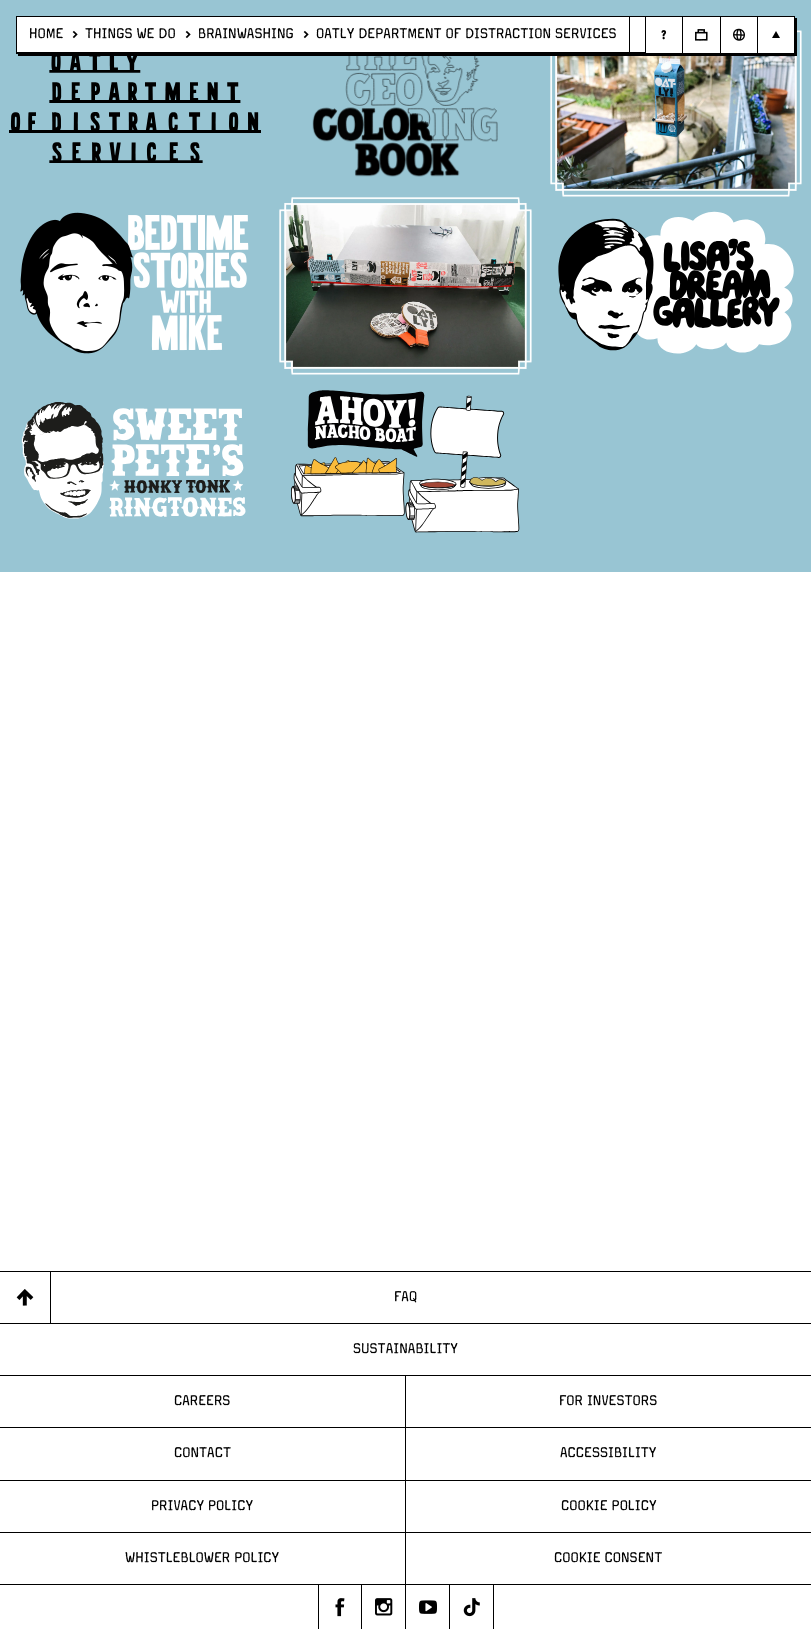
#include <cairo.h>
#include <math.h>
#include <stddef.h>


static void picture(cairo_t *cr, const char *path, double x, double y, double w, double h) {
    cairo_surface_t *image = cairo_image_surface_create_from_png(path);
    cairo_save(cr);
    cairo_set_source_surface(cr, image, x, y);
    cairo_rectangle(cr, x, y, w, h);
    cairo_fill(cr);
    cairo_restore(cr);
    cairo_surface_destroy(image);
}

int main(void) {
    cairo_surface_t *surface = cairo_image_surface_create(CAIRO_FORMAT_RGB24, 811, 1629);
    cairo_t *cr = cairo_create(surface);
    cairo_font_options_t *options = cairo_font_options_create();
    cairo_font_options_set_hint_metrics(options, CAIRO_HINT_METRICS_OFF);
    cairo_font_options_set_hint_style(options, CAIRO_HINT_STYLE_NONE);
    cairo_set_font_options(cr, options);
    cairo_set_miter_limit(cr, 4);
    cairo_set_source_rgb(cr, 1, 1, 1);
    cairo_paint(cr);
    cairo_set_source_rgb(cr, 0.596, 0.773, 0.827);
    cairo_rectangle(cr, 0, 0, 811, 572);
    cairo_fill(cr);
    picture(cr, "img1.png", 9, 56, 252, 107);
    picture(cr, "img2.png", 312, 56, 186, 121);
    picture(cr, "img3.png", 550, 30, 252, 167);
    picture(cr, "img4.png", 20, 212, 229, 142);
    picture(cr, "img5.png", 279, 197, 253, 178);
    picture(cr, "img6.png", 558, 211, 236, 143);
    picture(cr, "img7.png", 21, 402, 225, 117);
    picture(cr, "img8.png", 291, 390, 229, 143);
    cairo_set_source_rgb(cr, 0, 0, 0);
    cairo_new_path(cr);
    cairo_move_to(cr, 18, 54);
    cairo_line_to(cr, 18, 56);
    cairo_line_to(cr, 797, 56);
    cairo_line_to(cr, 797, 18);
    cairo_line_to(cr, 795, 18);
    cairo_line_to(cr, 795, 54);
    cairo_close_path(cr);
    cairo_fill(cr);
    cairo_set_source_rgb(cr, 1, 1, 1);
    cairo_rectangle(cr, 16.5, 16.5, 778, 37);
    cairo_fill_preserve(cr);
    cairo_set_source_rgb(cr, 0, 0, 0);
    cairo_set_line_width(cr, 1);
    cairo_stroke(cr);
    cairo_rectangle(cr, 17, 52, 628, 1);
    cairo_fill(cr);
    cairo_rectangle(cr, 629, 17, 1, 35);
    cairo_fill(cr);
    cairo_select_font_face(cr, "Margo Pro", CAIRO_FONT_SLANT_NORMAL, CAIRO_FONT_WEIGHT_NORMAL);
    cairo_set_font_size(cr, 16);
    cairo_move_to(cr, 29, 38);
    cairo_show_text(cr, "HOME");
    picture(cr, "img9.png", 72, 30, 6, 9);
    cairo_move_to(cr, 85, 38);
    cairo_show_text(cr, "THINGS WE DO");
    picture(cr, "img9.png", 185, 30, 6, 9);
    cairo_move_to(cr, 198, 38);
    cairo_show_text(cr, "BRAINWASHING");
    picture(cr, "img9.png", 303, 30, 6, 9);
    cairo_move_to(cr, 316, 38);
    cairo_show_text(cr, "OATLY DEPARTMENT OF DISTRACTION SERVICES");
    cairo_rectangle(cr, 645, 17, 1, 36);
    cairo_fill(cr);
    picture(cr, "img10.png", 661, 30, 6, 10);
    cairo_rectangle(cr, 682, 17, 1, 36);
    cairo_fill(cr);
    picture(cr, "img11.png", 695, 29, 13, 12);
    cairo_rectangle(cr, 720, 17, 1, 36);
    cairo_fill(cr);
    picture(cr, "img12.png", 733, 28, 12, 13);
    cairo_rectangle(cr, 757, 17, 1, 36);
    cairo_fill(cr);
    cairo_new_path(cr);
    cairo_move_to(cr, 772, 38);
    cairo_line_to(cr, 780, 38);
    cairo_line_to(cr, 776, 31);
    cairo_close_path(cr);
    cairo_fill(cr);
    cairo_rectangle(cr, 0, 1271, 811, 1);
    cairo_fill(cr);
    cairo_rectangle(cr, 0, 1323, 811, 262);
    cairo_fill(cr);
    cairo_rectangle(cr, 50, 1272, 1, 51);
    cairo_fill(cr);
    picture(cr, "img13.png", 16, 1289, 18, 17);
    cairo_move_to(cr, 394, 1301);
    cairo_show_text(cr, "FAQ");
    cairo_set_source_rgb(cr, 1, 1, 1);
    cairo_rectangle(cr, 0, 1324, 811, 51);
    cairo_fill(cr);
    cairo_set_source_rgb(cr, 0, 0, 0);
    cairo_move_to(cr, 353, 1353);
    cairo_show_text(cr, "SUSTAINABILITY");
    cairo_set_source_rgb(cr, 1, 1, 1);
    cairo_rectangle(cr, 0, 1376, 405, 51);
    cairo_fill(cr);
    cairo_set_source_rgb(cr, 0, 0, 0);
    cairo_move_to(cr, 174, 1405);
    cairo_show_text(cr, "CAREERS");
    cairo_set_source_rgb(cr, 1, 1, 1);
    cairo_rectangle(cr, 406, 1376, 405, 51);
    cairo_fill(cr);
    cairo_set_source_rgb(cr, 0, 0, 0);
    cairo_move_to(cr, 559, 1405);
    cairo_show_text(cr, "FOR INVESTORS");
    cairo_set_source_rgb(cr, 1, 1, 1);
    cairo_rectangle(cr, 0, 1428, 405, 52);
    cairo_fill(cr);
    cairo_set_source_rgb(cr, 0, 0, 0);
    cairo_move_to(cr, 174, 1457);
    cairo_show_text(cr, "CONTACT");
    cairo_set_source_rgb(cr, 1, 1, 1);
    cairo_rectangle(cr, 406, 1428, 405, 52);
    cairo_fill(cr);
    cairo_set_source_rgb(cr, 0, 0, 0);
    cairo_move_to(cr, 560, 1457);
    cairo_show_text(cr, "ACCESSIBILITY");
    cairo_set_source_rgb(cr, 1, 1, 1);
    cairo_rectangle(cr, 0, 1481, 405, 51);
    cairo_fill(cr);
    cairo_set_source_rgb(cr, 0, 0, 0);
    cairo_move_to(cr, 151, 1510);
    cairo_show_text(cr, "PRIVACY POLICY");
    cairo_set_source_rgb(cr, 1, 1, 1);
    cairo_rectangle(cr, 406, 1481, 405, 51);
    cairo_fill(cr);
    cairo_set_source_rgb(cr, 0, 0, 0);
    cairo_move_to(cr, 561, 1510);
    cairo_show_text(cr, "COOKIE POLICY");
    cairo_set_source_rgb(cr, 1, 1, 1);
    cairo_rectangle(cr, 0, 1533, 405, 51);
    cairo_fill(cr);
    cairo_set_source_rgb(cr, 0, 0, 0);
    cairo_move_to(cr, 125, 1562);
    cairo_show_text(cr, "WHISTLEBLOWER POLICY");
    cairo_set_source_rgb(cr, 1, 1, 1);
    cairo_rectangle(cr, 406, 1533, 405, 51);
    cairo_fill(cr);
    cairo_set_source_rgb(cr, 0, 0, 0);
    cairo_move_to(cr, 554, 1562);
    cairo_show_text(cr, "COOKIE CONSENT");
    cairo_rectangle(cr, 361, 1585, 1, 44);
    cairo_fill(cr);
    cairo_rectangle(cr, 318, 1585, 1, 44);
    cairo_fill(cr);
    picture(cr, "img14.png", 335, 1598, 10, 19);
    cairo_rectangle(cr, 405, 1585, 1, 44);
    cairo_fill(cr);
    picture(cr, "img15.png", 375, 1598, 18, 18);
    cairo_rectangle(cr, 449, 1585, 1, 44);
    cairo_fill(cr);
    picture(cr, "img16.png", 419, 1600, 18, 14);
    cairo_rectangle(cr, 493, 1585, 1, 44);
    cairo_fill(cr);
    picture(cr, "img17.png", 463, 1598, 17, 19);
    cairo_surface_write_to_png(surface, "page.png");
    cairo_font_options_destroy(options);
    cairo_destroy(cr);
    cairo_surface_destroy(surface);
    return 0;
}
